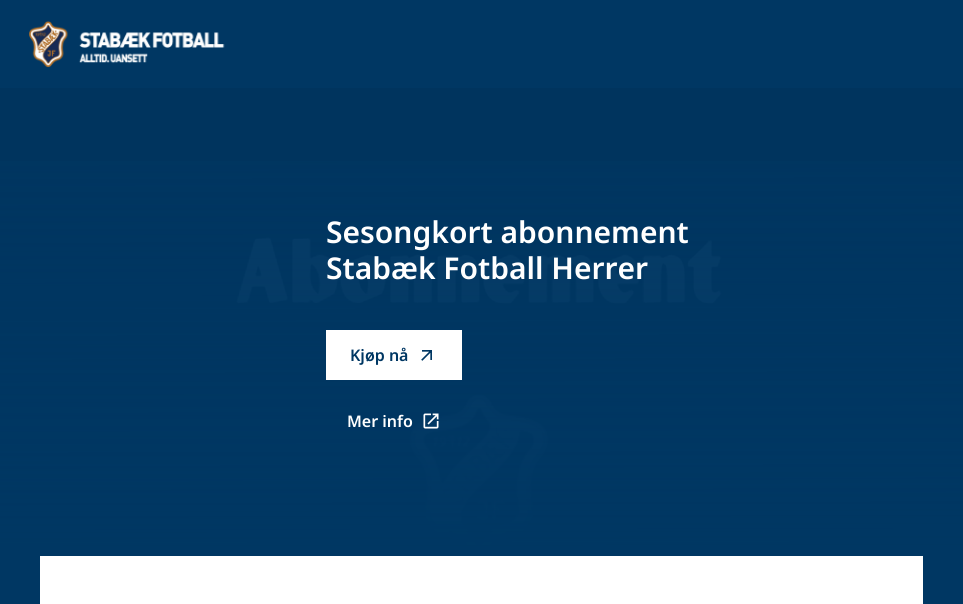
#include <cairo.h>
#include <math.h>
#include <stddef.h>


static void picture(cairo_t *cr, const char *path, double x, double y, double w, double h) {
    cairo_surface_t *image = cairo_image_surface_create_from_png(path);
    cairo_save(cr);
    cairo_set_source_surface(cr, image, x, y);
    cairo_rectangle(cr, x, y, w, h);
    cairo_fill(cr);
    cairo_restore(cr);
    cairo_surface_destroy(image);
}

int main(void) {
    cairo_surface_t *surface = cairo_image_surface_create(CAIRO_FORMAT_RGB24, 963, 604);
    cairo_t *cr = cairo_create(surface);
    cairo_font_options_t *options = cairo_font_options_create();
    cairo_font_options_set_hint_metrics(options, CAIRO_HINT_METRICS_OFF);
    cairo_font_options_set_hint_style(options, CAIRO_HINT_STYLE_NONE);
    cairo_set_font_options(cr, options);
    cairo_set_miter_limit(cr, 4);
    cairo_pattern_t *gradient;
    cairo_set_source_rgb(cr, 0, 0.216, 0.388);
    cairo_paint(cr);
    picture(cr, "img1.png", 29, 21, 196, 47);
    picture(cr, "img2.png", 0, 88, 963, 458);
    gradient = cairo_pattern_create_linear(481, 88, 482, 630);
    cairo_pattern_add_color_stop_rgba(gradient, 0.1, 0, 0.216, 0.388, 0.4);
    cairo_pattern_add_color_stop_rgba(gradient, 0.85, 0, 0.216, 0.388, 1);
    cairo_set_source(cr, gradient);
    cairo_pattern_destroy(gradient);
    cairo_rectangle(cr, 0, 161, 963, 385);
    cairo_fill(cr);
    cairo_select_font_face(cr, "Noto Sans SemiBold", CAIRO_FONT_SLANT_NORMAL, CAIRO_FONT_WEIGHT_NORMAL);
    cairo_set_font_size(cr, 30);
    cairo_set_source_rgb(cr, 1, 1, 1);
    cairo_move_to(cr, 326, 243);
    cairo_show_text(cr, "Sesongkort abonnement");
    cairo_move_to(cr, 326, 279);
    cairo_show_text(cr, "Stabæk Fotball Herrer");
    cairo_rectangle(cr, 326, 330, 136, 50);
    cairo_fill(cr);
    cairo_set_font_size(cr, 16);
    cairo_set_source_rgb(cr, 0, 0.216, 0.388);
    cairo_move_to(cr, 350, 361);
    cairo_show_text(cr, "Kjøp nå");
    picture(cr, "img3.png", 421, 350, 11, 11);
    cairo_set_source_rgb(cr, 1, 1, 1);
    cairo_move_to(cr, 347, 427);
    cairo_show_text(cr, "Mer info");
    picture(cr, "img4.png", 423, 413, 16, 16);
    cairo_rectangle(cr, 40, 556, 883, 48);
    cairo_fill(cr);
    cairo_surface_write_to_png(surface, "page.png");
    cairo_font_options_destroy(options);
    cairo_destroy(cr);
    cairo_surface_destroy(surface);
    return 0;
}
